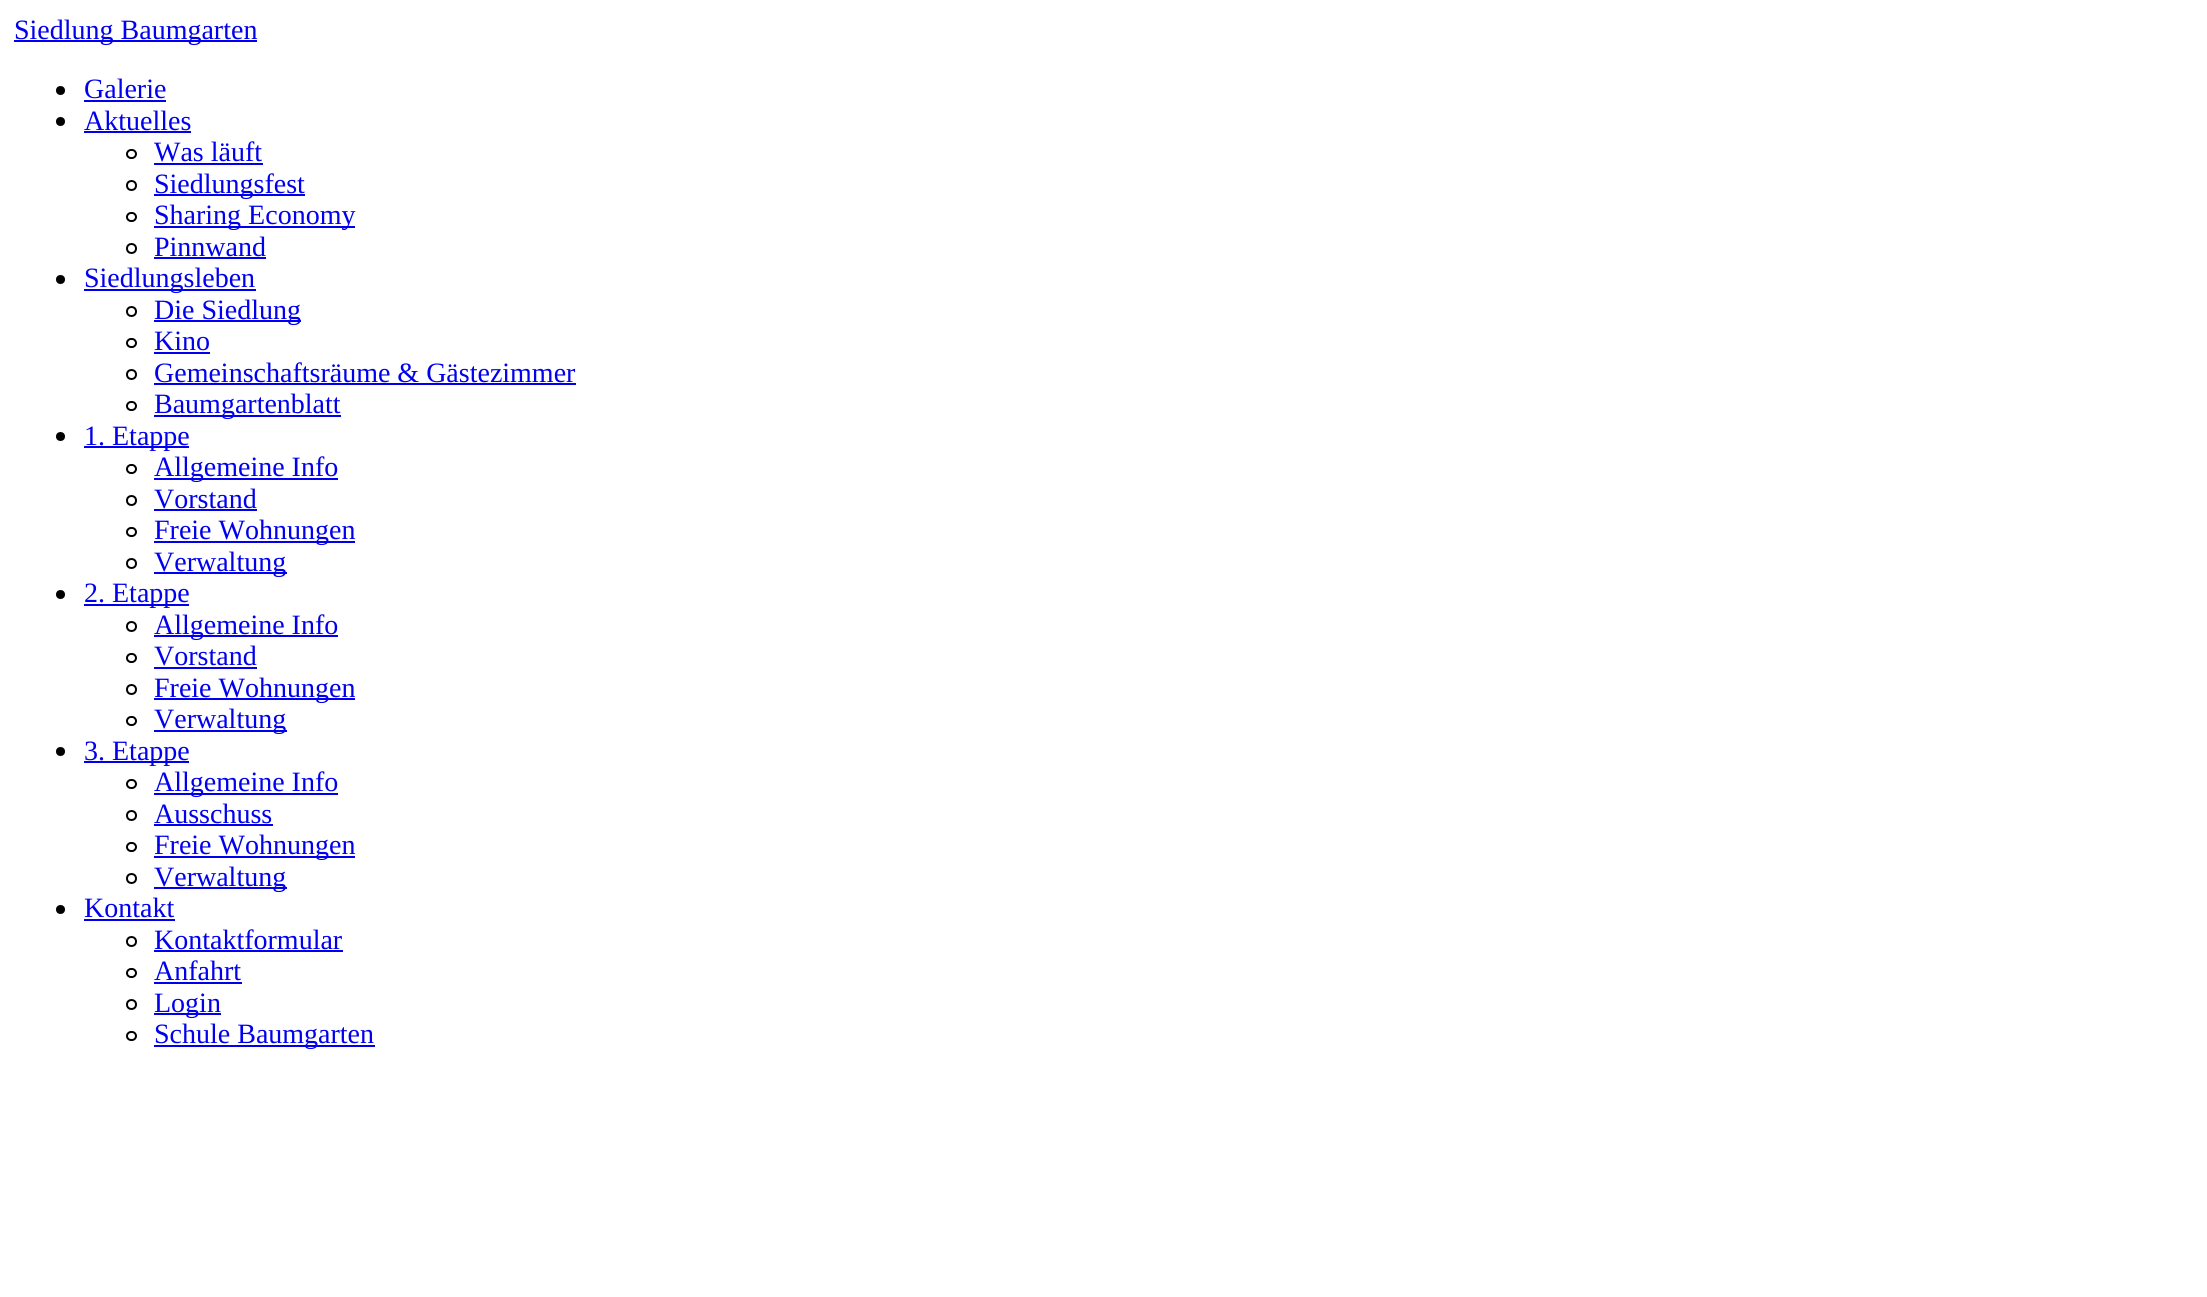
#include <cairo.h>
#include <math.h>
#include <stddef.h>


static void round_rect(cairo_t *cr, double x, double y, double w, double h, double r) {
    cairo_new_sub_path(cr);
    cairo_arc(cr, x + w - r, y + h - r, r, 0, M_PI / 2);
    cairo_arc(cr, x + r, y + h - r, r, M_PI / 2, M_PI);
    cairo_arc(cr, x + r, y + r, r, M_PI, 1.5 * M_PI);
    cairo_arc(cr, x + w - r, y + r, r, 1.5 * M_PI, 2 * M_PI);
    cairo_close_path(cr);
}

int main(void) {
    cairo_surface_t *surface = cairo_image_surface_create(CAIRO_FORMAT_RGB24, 2207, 1297);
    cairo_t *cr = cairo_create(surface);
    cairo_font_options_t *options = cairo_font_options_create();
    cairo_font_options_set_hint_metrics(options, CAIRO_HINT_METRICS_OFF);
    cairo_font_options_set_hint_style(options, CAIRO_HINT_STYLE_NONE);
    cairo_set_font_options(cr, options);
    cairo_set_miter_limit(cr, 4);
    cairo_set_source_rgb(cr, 1, 1, 1);
    cairo_paint(cr);
    cairo_set_source_rgb(cr, 0, 0, 0.933);
    cairo_rectangle(cr, 14, 40, 243, 2);
    cairo_fill(cr);
    cairo_select_font_face(cr, "Liberation Serif", CAIRO_FONT_SLANT_NORMAL, CAIRO_FONT_WEIGHT_NORMAL);
    cairo_set_font_size(cr, 28);
    cairo_move_to(cr, 14, 39);
    cairo_show_text(cr, "Siedlung Baumgarten");
    cairo_set_source_rgb(cr, 0, 0, 0);
    cairo_new_path(cr);
    cairo_arc(cr, 60.5, 90.5, 4.5, 0, 2 * M_PI);
    cairo_fill(cr);
    cairo_set_source_rgb(cr, 0, 0, 0.933);
    cairo_move_to(cr, 84, 98);
    cairo_show_text(cr, "Galerie");
    cairo_rectangle(cr, 84, 100, 82, 2);
    cairo_fill(cr);
    cairo_set_source_rgb(cr, 0, 0, 0);
    cairo_arc(cr, 60.5, 121.5, 4.5, 0, 2 * M_PI);
    cairo_fill(cr);
    cairo_set_source_rgb(cr, 0, 0, 0.933);
    cairo_move_to(cr, 84, 130);
    cairo_show_text(cr, "Aktuelles");
    cairo_rectangle(cr, 84, 131, 107, 2);
    cairo_fill(cr);
    round_rect(cr, 127, 150, 9, 8, 4);
    cairo_set_source_rgb(cr, 0, 0, 0);
    cairo_stroke(cr);
    cairo_set_source_rgb(cr, 0, 0, 0.933);
    cairo_move_to(cr, 154, 161);
    cairo_show_text(cr, "Was läuft");
    cairo_rectangle(cr, 154, 163, 109, 2);
    cairo_fill(cr);
    cairo_arc(cr, 131.5, 185.5, 4.5, 0, 2 * M_PI);
    cairo_set_source_rgb(cr, 0, 0, 0);
    cairo_stroke(cr);
    cairo_set_source_rgb(cr, 0, 0, 0.933);
    cairo_rectangle(cr, 154, 194, 151, 2);
    cairo_fill(cr);
    cairo_move_to(cr, 154, 193);
    cairo_show_text(cr, "Siedlungsfest");
    round_rect(cr, 127, 213, 9, 8, 4);
    cairo_set_source_rgb(cr, 0, 0, 0);
    cairo_stroke(cr);
    cairo_set_source_rgb(cr, 0, 0, 0.933);
    cairo_rectangle(cr, 154, 226, 201, 2);
    cairo_fill(cr);
    cairo_move_to(cr, 154, 224);
    cairo_show_text(cr, "Sharing Economy");
    cairo_new_path(cr);
    cairo_arc(cr, 131.5, 248.5, 4.5, 0, 2 * M_PI);
    cairo_set_source_rgb(cr, 0, 0, 0);
    cairo_stroke(cr);
    cairo_set_source_rgb(cr, 0, 0, 0.933);
    cairo_move_to(cr, 154, 256);
    cairo_show_text(cr, "Pinnwand");
    cairo_rectangle(cr, 154, 257, 112, 2);
    cairo_fill(cr);
    cairo_set_source_rgb(cr, 0, 0, 0);
    cairo_arc(cr, 60.5, 279.5, 4.5, 0, 2 * M_PI);
    cairo_fill(cr);
    cairo_set_source_rgb(cr, 0, 0, 0.933);
    cairo_rectangle(cr, 84, 289, 172, 2);
    cairo_fill(cr);
    cairo_move_to(cr, 84, 287);
    cairo_show_text(cr, "Siedlungsleben");
    cairo_new_path(cr);
    cairo_arc(cr, 131.5, 311.5, 4.5, 0, 2 * M_PI);
    cairo_set_source_rgb(cr, 0, 0, 0);
    cairo_stroke(cr);
    cairo_set_source_rgb(cr, 0, 0, 0.933);
    cairo_rectangle(cr, 154, 320, 147, 2);
    cairo_fill(cr);
    cairo_move_to(cr, 154, 319);
    cairo_show_text(cr, "Die Siedlung");
    round_rect(cr, 127, 339, 9, 8, 4);
    cairo_set_source_rgb(cr, 0, 0, 0);
    cairo_stroke(cr);
    cairo_set_source_rgb(cr, 0, 0, 0.933);
    cairo_move_to(cr, 154, 350);
    cairo_show_text(cr, "Kino");
    cairo_rectangle(cr, 154, 352, 56, 2);
    cairo_fill(cr);
    cairo_arc(cr, 131.5, 374.5, 4.5, 0, 2 * M_PI);
    cairo_set_source_rgb(cr, 0, 0, 0);
    cairo_stroke(cr);
    cairo_set_source_rgb(cr, 0, 0, 0.933);
    cairo_move_to(cr, 154, 382);
    cairo_show_text(cr, "Gemeinschaftsräume & Gästezimmer");
    cairo_rectangle(cr, 154, 383, 422, 2);
    cairo_fill(cr);
    round_rect(cr, 127, 402, 9, 8, 4);
    cairo_set_source_rgb(cr, 0, 0, 0);
    cairo_stroke(cr);
    cairo_set_source_rgb(cr, 0, 0, 0.933);
    cairo_rectangle(cr, 154, 415, 187, 2);
    cairo_fill(cr);
    cairo_move_to(cr, 154, 413);
    cairo_show_text(cr, "Baumgartenblatt");
    cairo_set_source_rgb(cr, 0, 0, 0);
    cairo_new_path(cr);
    cairo_arc(cr, 60.5, 436.5, 4.5, 0, 2 * M_PI);
    cairo_fill(cr);
    cairo_set_source_rgb(cr, 0, 0, 0.933);
    cairo_rectangle(cr, 84, 446, 105, 2);
    cairo_fill(cr);
    cairo_move_to(cr, 84, 445);
    cairo_show_text(cr, "1. Etappe");
    round_rect(cr, 127, 465, 9, 8, 4);
    cairo_set_source_rgb(cr, 0, 0, 0);
    cairo_stroke(cr);
    cairo_set_source_rgb(cr, 0, 0, 0.933);
    cairo_rectangle(cr, 154, 478, 184, 2);
    cairo_fill(cr);
    cairo_move_to(cr, 154, 476);
    cairo_show_text(cr, "Allgemeine Info");
    cairo_new_path(cr);
    cairo_arc(cr, 131.5, 500.5, 4.5, 0, 2 * M_PI);
    cairo_set_source_rgb(cr, 0, 0, 0);
    cairo_stroke(cr);
    cairo_set_source_rgb(cr, 0, 0, 0.933);
    cairo_move_to(cr, 154, 508);
    cairo_show_text(cr, "Vorstand");
    cairo_rectangle(cr, 154, 509, 103, 2);
    cairo_fill(cr);
    round_rect(cr, 127, 528, 9, 8, 4);
    cairo_set_source_rgb(cr, 0, 0, 0);
    cairo_stroke(cr);
    cairo_set_source_rgb(cr, 0, 0, 0.933);
    cairo_rectangle(cr, 154, 541, 201, 2);
    cairo_fill(cr);
    cairo_move_to(cr, 154, 539);
    cairo_show_text(cr, "Freie Wohnungen");
    cairo_new_path(cr);
    cairo_arc(cr, 131.5, 563.5, 4.5, 0, 2 * M_PI);
    cairo_set_source_rgb(cr, 0, 0, 0);
    cairo_stroke(cr);
    cairo_set_source_rgb(cr, 0, 0, 0.933);
    cairo_rectangle(cr, 154, 572, 133, 2);
    cairo_fill(cr);
    cairo_move_to(cr, 154, 571);
    cairo_show_text(cr, "Verwaltung");
    cairo_set_source_rgb(cr, 0, 0, 0);
    cairo_new_path(cr);
    cairo_arc(cr, 60.5, 594.5, 4.5, 0, 2 * M_PI);
    cairo_fill(cr);
    cairo_set_source_rgb(cr, 0, 0, 0.933);
    cairo_rectangle(cr, 84, 604, 105, 2);
    cairo_fill(cr);
    cairo_move_to(cr, 84, 602);
    cairo_show_text(cr, "2. Etappe");
    cairo_new_path(cr);
    cairo_arc(cr, 131.5, 626.5, 4.5, 0, 2 * M_PI);
    cairo_set_source_rgb(cr, 0, 0, 0);
    cairo_stroke(cr);
    cairo_set_source_rgb(cr, 0, 0, 0.933);
    cairo_rectangle(cr, 154, 635, 184, 2);
    cairo_fill(cr);
    cairo_move_to(cr, 154, 634);
    cairo_show_text(cr, "Allgemeine Info");
    round_rect(cr, 127, 654, 9, 8, 4);
    cairo_set_source_rgb(cr, 0, 0, 0);
    cairo_stroke(cr);
    cairo_set_source_rgb(cr, 0, 0, 0.933);
    cairo_move_to(cr, 154, 665);
    cairo_show_text(cr, "Vorstand");
    cairo_rectangle(cr, 154, 667, 103, 2);
    cairo_fill(cr);
    cairo_arc(cr, 131.5, 689.5, 4.5, 0, 2 * M_PI);
    cairo_set_source_rgb(cr, 0, 0, 0);
    cairo_stroke(cr);
    cairo_set_source_rgb(cr, 0, 0, 0.933);
    cairo_rectangle(cr, 154, 698, 201, 2);
    cairo_fill(cr);
    cairo_move_to(cr, 154, 697);
    cairo_show_text(cr, "Freie Wohnungen");
    round_rect(cr, 127, 717, 9, 8, 4);
    cairo_set_source_rgb(cr, 0, 0, 0);
    cairo_stroke(cr);
    cairo_set_source_rgb(cr, 0, 0, 0.933);
    cairo_rectangle(cr, 154, 730, 133, 2);
    cairo_fill(cr);
    cairo_move_to(cr, 154, 728);
    cairo_show_text(cr, "Verwaltung");
    cairo_set_source_rgb(cr, 0, 0, 0);
    cairo_new_path(cr);
    cairo_arc(cr, 60.5, 751.5, 4.5, 0, 2 * M_PI);
    cairo_fill(cr);
    cairo_set_source_rgb(cr, 0, 0, 0.933);
    cairo_rectangle(cr, 84, 761, 105, 2);
    cairo_fill(cr);
    cairo_move_to(cr, 84, 760);
    cairo_show_text(cr, "3. Etappe");
    round_rect(cr, 127, 780, 9, 8, 4);
    cairo_set_source_rgb(cr, 0, 0, 0);
    cairo_stroke(cr);
    cairo_set_source_rgb(cr, 0, 0, 0.933);
    cairo_rectangle(cr, 154, 793, 184, 2);
    cairo_fill(cr);
    cairo_move_to(cr, 154, 791);
    cairo_show_text(cr, "Allgemeine Info");
    cairo_new_path(cr);
    cairo_arc(cr, 131.5, 815.5, 4.5, 0, 2 * M_PI);
    cairo_set_source_rgb(cr, 0, 0, 0);
    cairo_stroke(cr);
    cairo_set_source_rgb(cr, 0, 0, 0.933);
    cairo_move_to(cr, 154, 823);
    cairo_show_text(cr, "Ausschuss");
    cairo_rectangle(cr, 154, 824, 119, 2);
    cairo_fill(cr);
    round_rect(cr, 127, 843, 9, 8, 4);
    cairo_set_source_rgb(cr, 0, 0, 0);
    cairo_stroke(cr);
    cairo_set_source_rgb(cr, 0, 0, 0.933);
    cairo_rectangle(cr, 154, 856, 201, 2);
    cairo_fill(cr);
    cairo_move_to(cr, 154, 854);
    cairo_show_text(cr, "Freie Wohnungen");
    cairo_new_path(cr);
    cairo_arc(cr, 131.5, 878.5, 4.5, 0, 2 * M_PI);
    cairo_set_source_rgb(cr, 0, 0, 0);
    cairo_stroke(cr);
    cairo_set_source_rgb(cr, 0, 0, 0.933);
    cairo_rectangle(cr, 154, 887, 133, 2);
    cairo_fill(cr);
    cairo_move_to(cr, 154, 886);
    cairo_show_text(cr, "Verwaltung");
    cairo_set_source_rgb(cr, 0, 0, 0);
    cairo_new_path(cr);
    cairo_arc(cr, 60.5, 909.5, 4.5, 0, 2 * M_PI);
    cairo_fill(cr);
    cairo_set_source_rgb(cr, 0, 0, 0.933);
    cairo_move_to(cr, 84, 917);
    cairo_show_text(cr, "Kontakt");
    cairo_rectangle(cr, 84, 919, 91, 2);
    cairo_fill(cr);
    cairo_arc(cr, 131.5, 941.5, 4.5, 0, 2 * M_PI);
    cairo_set_source_rgb(cr, 0, 0, 0);
    cairo_stroke(cr);
    cairo_set_source_rgb(cr, 0, 0, 0.933);
    cairo_move_to(cr, 154, 949);
    cairo_show_text(cr, "Kontaktformular");
    cairo_rectangle(cr, 154, 950, 189, 2);
    cairo_fill(cr);
    round_rect(cr, 127, 969, 9, 8, 4);
    cairo_set_source_rgb(cr, 0, 0, 0);
    cairo_stroke(cr);
    cairo_set_source_rgb(cr, 0, 0, 0.933);
    cairo_move_to(cr, 154, 980);
    cairo_show_text(cr, "Anfahrt");
    cairo_rectangle(cr, 154, 982, 88, 2);
    cairo_fill(cr);
    cairo_arc(cr, 131.5, 1004.5, 4.5, 0, 2 * M_PI);
    cairo_set_source_rgb(cr, 0, 0, 0);
    cairo_stroke(cr);
    cairo_set_source_rgb(cr, 0, 0, 0.933);
    cairo_rectangle(cr, 154, 1013, 67, 2);
    cairo_fill(cr);
    cairo_move_to(cr, 154, 1012);
    cairo_show_text(cr, "Login");
    round_rect(cr, 127, 1032, 9, 8, 4);
    cairo_set_source_rgb(cr, 0, 0, 0);
    cairo_stroke(cr);
    cairo_set_source_rgb(cr, 0, 0, 0.933);
    cairo_rectangle(cr, 154, 1045, 221, 2);
    cairo_fill(cr);
    cairo_move_to(cr, 154, 1043);
    cairo_show_text(cr, "Schule Baumgarten");
    cairo_surface_write_to_png(surface, "page.png");
    cairo_font_options_destroy(options);
    cairo_destroy(cr);
    cairo_surface_destroy(surface);
    return 0;
}
